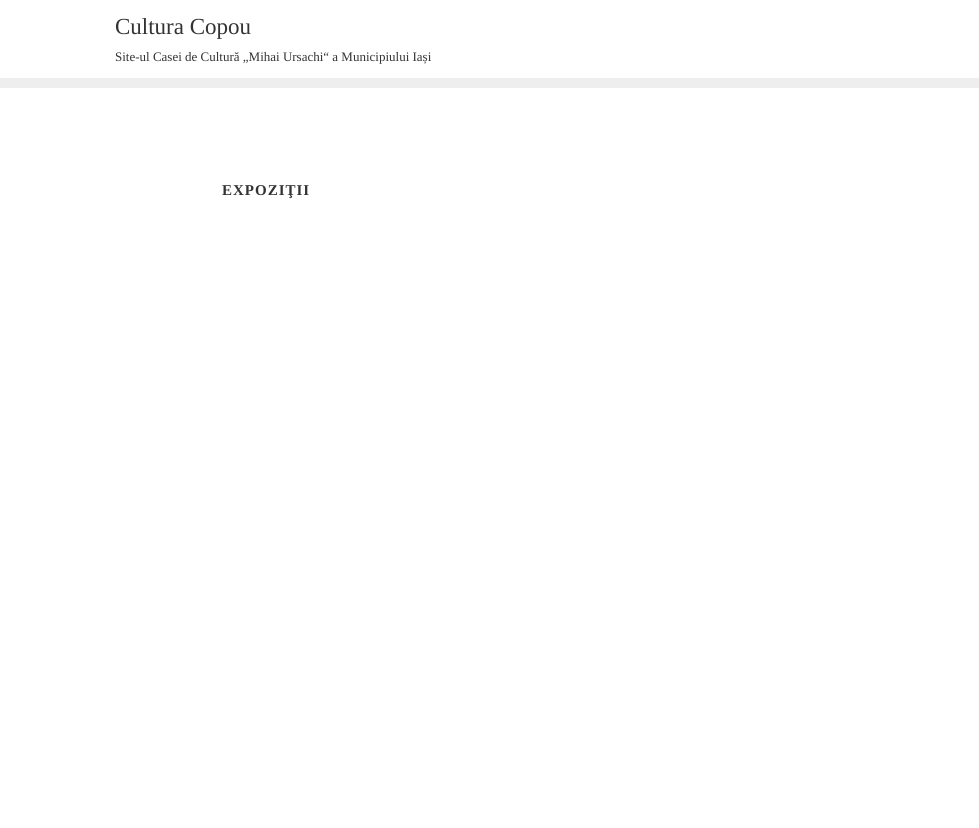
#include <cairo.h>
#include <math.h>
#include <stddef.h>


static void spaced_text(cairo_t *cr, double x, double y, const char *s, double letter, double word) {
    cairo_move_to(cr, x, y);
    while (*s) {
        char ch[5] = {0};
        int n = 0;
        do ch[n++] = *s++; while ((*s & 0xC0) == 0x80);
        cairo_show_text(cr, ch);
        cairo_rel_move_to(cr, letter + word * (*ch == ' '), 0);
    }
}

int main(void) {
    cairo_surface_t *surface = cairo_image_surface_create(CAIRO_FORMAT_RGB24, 979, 828);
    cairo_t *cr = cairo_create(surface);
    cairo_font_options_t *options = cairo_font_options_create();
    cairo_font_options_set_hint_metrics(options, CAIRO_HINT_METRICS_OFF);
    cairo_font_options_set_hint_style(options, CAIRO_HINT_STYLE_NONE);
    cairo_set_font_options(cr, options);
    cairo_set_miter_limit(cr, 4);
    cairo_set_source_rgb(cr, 1, 1, 1);
    cairo_paint(cr);
    cairo_set_source_rgb(cr, 0.933, 0.933, 0.933);
    cairo_rectangle(cr, 0, 78, 979, 10);
    cairo_fill(cr);
    cairo_select_font_face(cr, "Liberation Serif", CAIRO_FONT_SLANT_NORMAL, CAIRO_FONT_WEIGHT_NORMAL);
    cairo_set_font_size(cr, 23);
    cairo_set_source_rgb(cr, 0.2, 0.2, 0.2);
    cairo_move_to(cr, 115, 34);
    cairo_show_text(cr, "Cultura Copou");
    cairo_set_font_size(cr, 13);
    cairo_move_to(cr, 115, 61);
    cairo_show_text(cr, "Site-ul Casei de Cultură „Mihai Ursachi“ a Municipiului Iași");
    cairo_select_font_face(cr, "Liberation Serif", CAIRO_FONT_SLANT_NORMAL, CAIRO_FONT_WEIGHT_BOLD);
    cairo_set_font_size(cr, 15);
    spaced_text(cr, 222, 195, "EXPOZIŢII", 1, 0);
    cairo_surface_write_to_png(surface, "page.png");
    cairo_font_options_destroy(options);
    cairo_destroy(cr);
    cairo_surface_destroy(surface);
    return 0;
}
